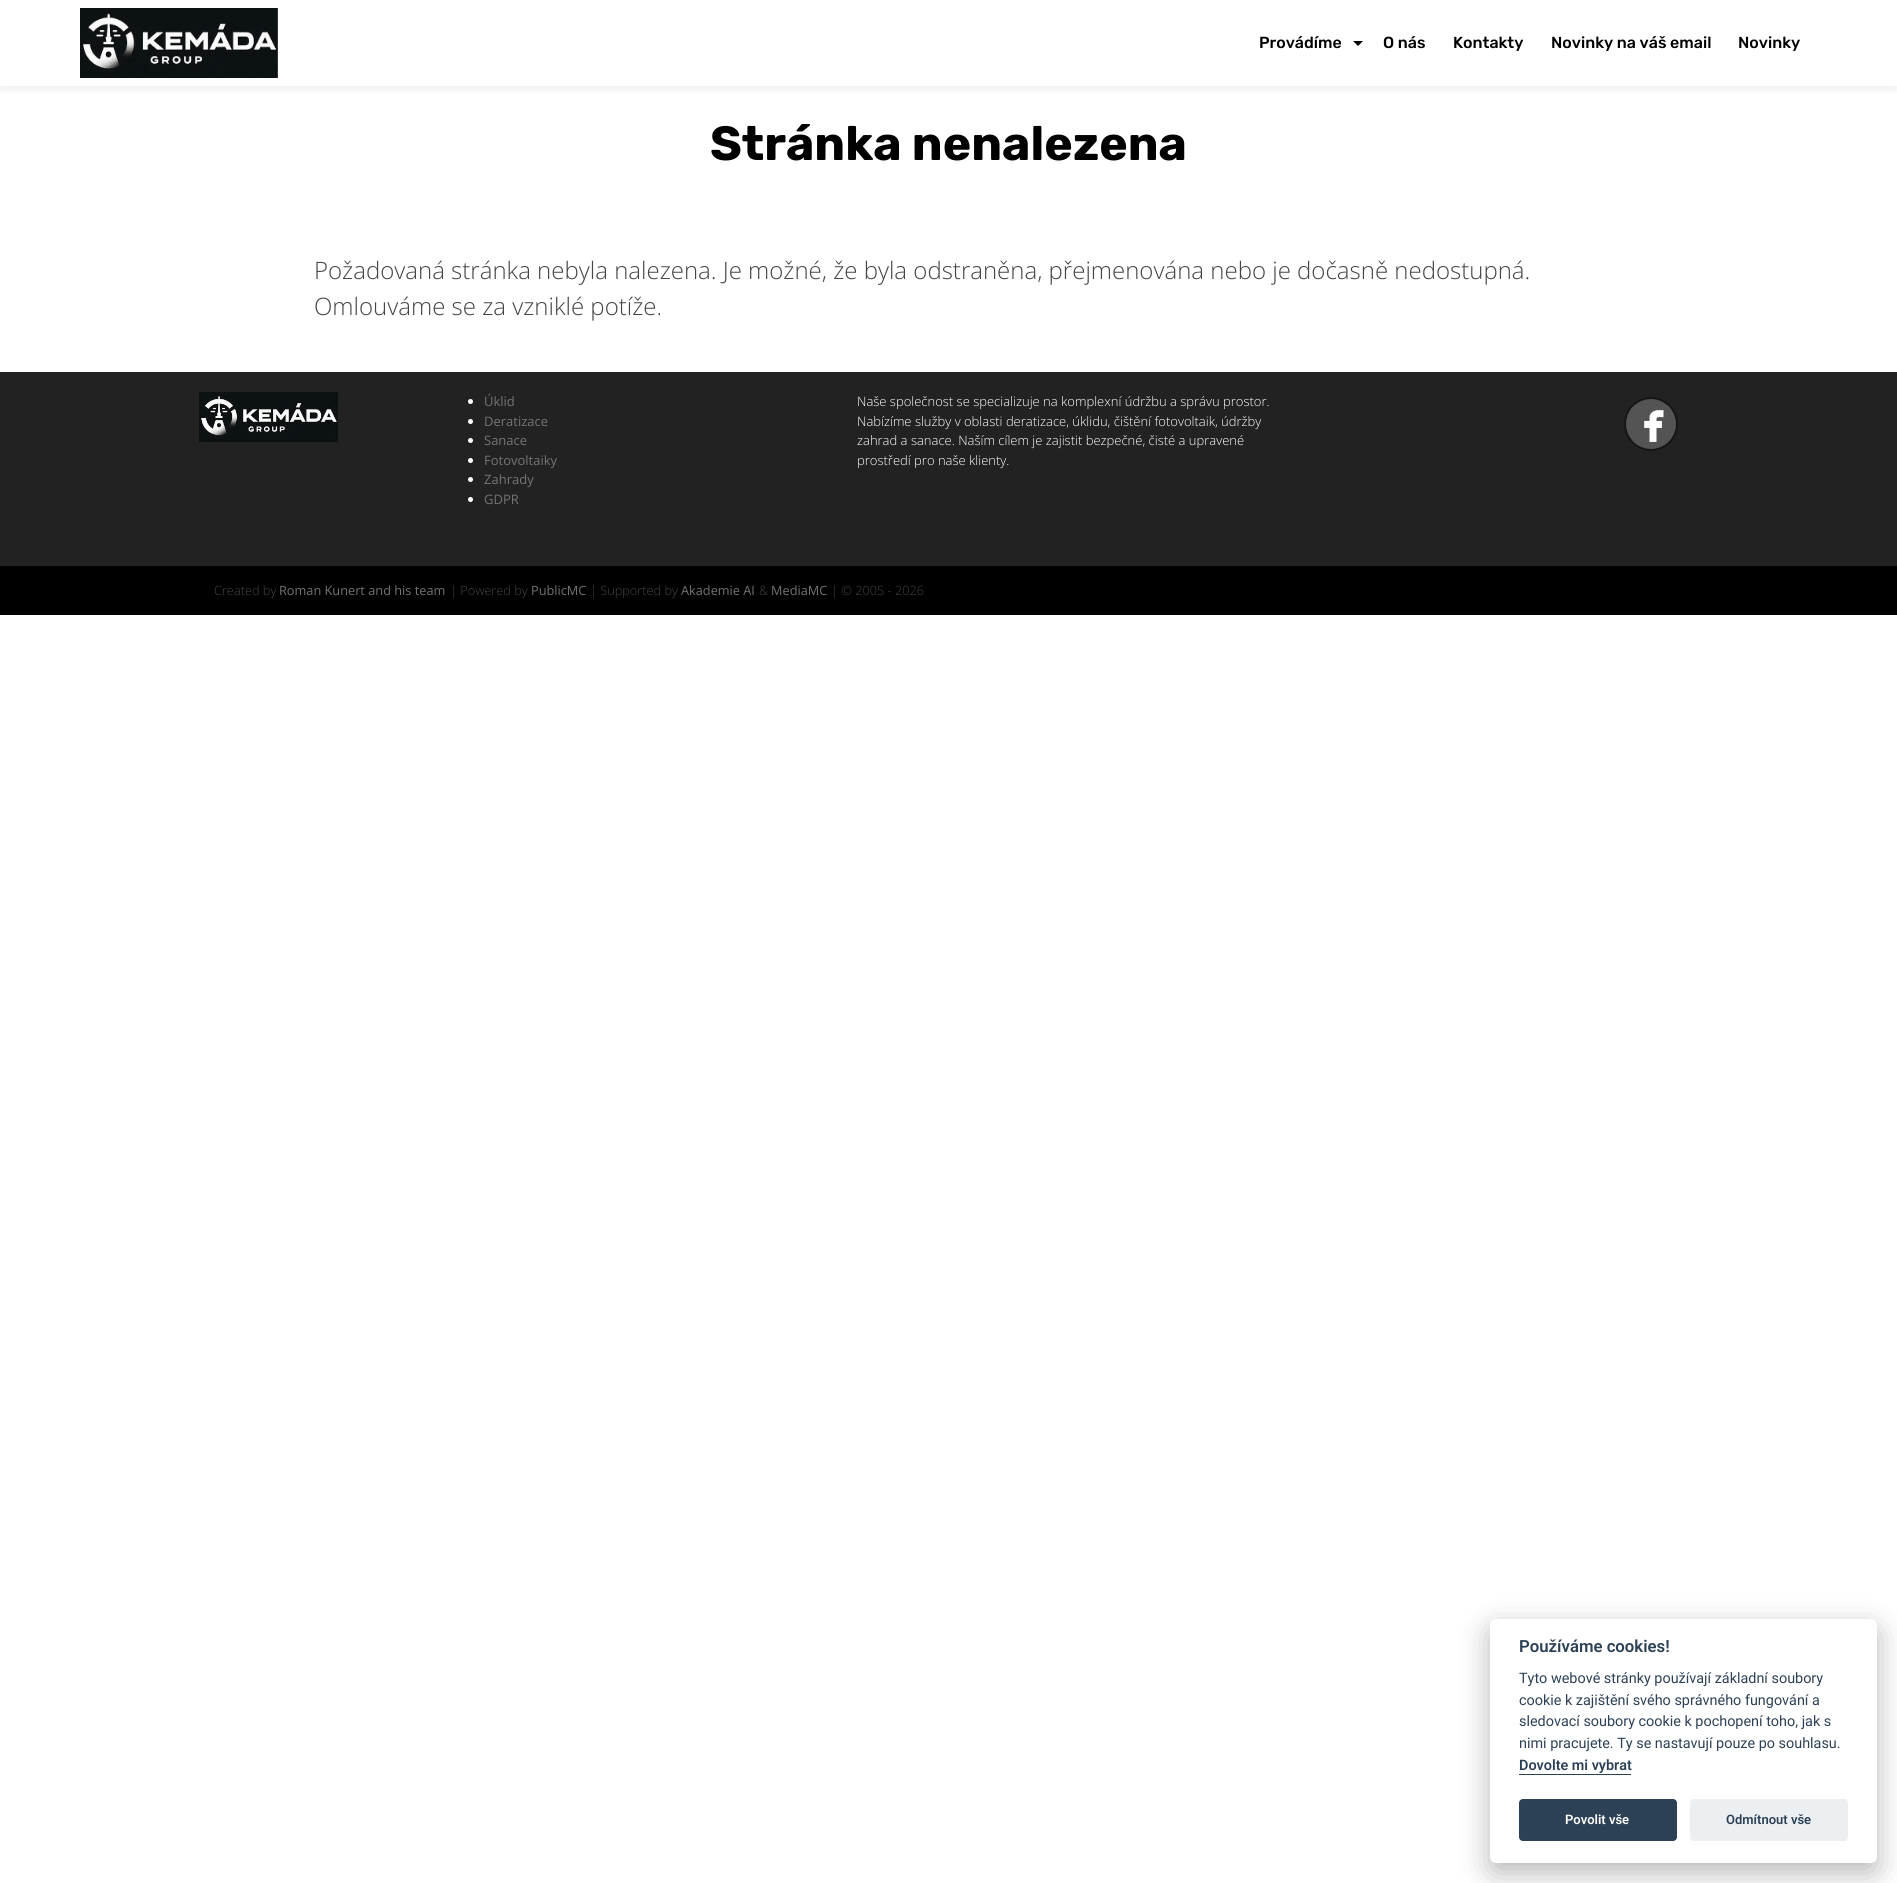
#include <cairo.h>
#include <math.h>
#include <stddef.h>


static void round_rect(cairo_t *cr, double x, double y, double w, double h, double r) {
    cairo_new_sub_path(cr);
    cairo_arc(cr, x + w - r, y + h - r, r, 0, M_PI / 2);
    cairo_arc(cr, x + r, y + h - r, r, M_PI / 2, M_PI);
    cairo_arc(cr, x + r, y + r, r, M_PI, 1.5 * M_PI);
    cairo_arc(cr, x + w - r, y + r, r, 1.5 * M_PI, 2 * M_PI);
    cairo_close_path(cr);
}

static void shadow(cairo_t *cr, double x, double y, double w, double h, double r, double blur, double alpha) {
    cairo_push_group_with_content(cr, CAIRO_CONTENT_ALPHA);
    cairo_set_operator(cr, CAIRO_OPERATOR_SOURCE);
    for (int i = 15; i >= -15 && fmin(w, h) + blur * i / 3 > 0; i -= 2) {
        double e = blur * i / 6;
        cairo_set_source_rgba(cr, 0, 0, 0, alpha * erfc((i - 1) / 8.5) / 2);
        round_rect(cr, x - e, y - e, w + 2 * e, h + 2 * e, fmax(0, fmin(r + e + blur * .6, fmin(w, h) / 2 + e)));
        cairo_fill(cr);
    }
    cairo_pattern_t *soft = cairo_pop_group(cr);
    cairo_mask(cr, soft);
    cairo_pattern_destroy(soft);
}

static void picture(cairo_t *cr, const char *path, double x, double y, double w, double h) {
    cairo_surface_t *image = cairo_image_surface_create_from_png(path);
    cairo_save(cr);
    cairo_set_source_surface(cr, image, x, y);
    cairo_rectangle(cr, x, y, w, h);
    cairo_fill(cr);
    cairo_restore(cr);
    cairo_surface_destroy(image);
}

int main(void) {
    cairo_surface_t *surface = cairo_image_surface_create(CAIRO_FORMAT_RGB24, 1897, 1883);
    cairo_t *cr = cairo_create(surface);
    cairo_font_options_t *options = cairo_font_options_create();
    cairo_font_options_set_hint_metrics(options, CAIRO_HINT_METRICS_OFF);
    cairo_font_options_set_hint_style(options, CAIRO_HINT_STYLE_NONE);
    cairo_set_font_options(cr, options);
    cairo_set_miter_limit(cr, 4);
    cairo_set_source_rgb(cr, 1, 1, 1);
    cairo_paint(cr);
    cairo_save(cr);
    cairo_rectangle(cr, 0, 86, 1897, 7);
    cairo_clip(cr);
    cairo_set_source_rgb(cr, 0, 0, 0);
    shadow(cr, 0, 0, 1897, 86, 0, 8, 0.1);
    cairo_restore(cr);
    picture(cr, "img1.png", 80, 8, 198, 70);
    cairo_select_font_face(cr, "Rubik Medium", CAIRO_FONT_SLANT_NORMAL, CAIRO_FONT_WEIGHT_NORMAL);
    cairo_set_font_size(cr, 16);
    cairo_set_source_rgb(cr, 0, 0, 0);
    cairo_move_to(cr, 1259, 48);
    cairo_show_text(cr, "Provádíme");
    cairo_new_path(cr);
    cairo_move_to(cr, 1353, 41);
    cairo_line_to(cr, 1363, 41);
    cairo_line_to(cr, 1358, 46);
    cairo_close_path(cr);
    cairo_fill(cr);
    cairo_move_to(cr, 1383, 48);
    cairo_show_text(cr, "O nás");
    cairo_move_to(cr, 1453, 48);
    cairo_show_text(cr, "Kontakty");
    cairo_move_to(cr, 1551, 48);
    cairo_show_text(cr, "Novinky na váš email");
    cairo_move_to(cr, 1738, 48);
    cairo_show_text(cr, "Novinky");
    cairo_select_font_face(cr, "Rubik", CAIRO_FONT_SLANT_NORMAL, CAIRO_FONT_WEIGHT_BOLD);
    cairo_set_font_size(cr, 48);
    cairo_move_to(cr, 710, 160);
    cairo_show_text(cr, "Stránka nenalezena");
    cairo_select_font_face(cr, "Open Sans Light", CAIRO_FONT_SLANT_NORMAL, CAIRO_FONT_WEIGHT_NORMAL);
    cairo_set_font_size(cr, 24);
    cairo_set_source_rgb(cr, 0.267, 0.267, 0.267);
    cairo_move_to(cr, 314, 279);
    cairo_show_text(cr, "Požadovaná stránka nebyla nalezena. Je možné, že byla odstraněna, přejmenována nebo je dočasně nedostupná.");
    cairo_move_to(cr, 314, 315);
    cairo_show_text(cr, "Omlouváme se za vzniklé potíže.");
    cairo_set_source_rgb(cr, 0.133, 0.133, 0.133);
    cairo_rectangle(cr, 0, 372, 1897, 194);
    cairo_fill(cr);
    picture(cr, "img2.png", 199, 392, 139, 50);
    cairo_set_source_rgb(cr, 1, 1, 1);
    cairo_arc(cr, 470.5, 401.5, 2.5, 0, 2 * M_PI);
    cairo_fill(cr);
    cairo_select_font_face(cr, "Open Sans", CAIRO_FONT_SLANT_NORMAL, CAIRO_FONT_WEIGHT_NORMAL);
    cairo_set_font_size(cr, 13);
    cairo_set_source_rgb(cr, 0.455, 0.455, 0.455);
    cairo_move_to(cr, 484, 406);
    cairo_show_text(cr, "Úklid");
    cairo_set_source_rgb(cr, 1, 1, 1);
    cairo_new_path(cr);
    cairo_arc(cr, 470.5, 421.5, 2.5, 0, 2 * M_PI);
    cairo_fill(cr);
    cairo_set_source_rgb(cr, 0.455, 0.455, 0.455);
    cairo_move_to(cr, 484, 426);
    cairo_show_text(cr, "Deratizace");
    cairo_set_source_rgb(cr, 1, 1, 1);
    cairo_new_path(cr);
    cairo_arc(cr, 470.5, 440.5, 2.5, 0, 2 * M_PI);
    cairo_fill(cr);
    cairo_set_source_rgb(cr, 0.455, 0.455, 0.455);
    cairo_move_to(cr, 484, 445);
    cairo_show_text(cr, "Sanace");
    cairo_set_source_rgb(cr, 1, 1, 1);
    cairo_new_path(cr);
    cairo_arc(cr, 470.5, 460.5, 2.5, 0, 2 * M_PI);
    cairo_fill(cr);
    cairo_set_source_rgb(cr, 0.455, 0.455, 0.455);
    cairo_move_to(cr, 484, 465);
    cairo_show_text(cr, "Fotovoltaiky");
    cairo_set_source_rgb(cr, 1, 1, 1);
    cairo_new_path(cr);
    cairo_arc(cr, 470.5, 479.5, 2.5, 0, 2 * M_PI);
    cairo_fill(cr);
    cairo_set_source_rgb(cr, 0.455, 0.455, 0.455);
    cairo_move_to(cr, 484, 484);
    cairo_show_text(cr, "Zahrady");
    cairo_set_source_rgb(cr, 1, 1, 1);
    cairo_new_path(cr);
    cairo_arc(cr, 470.5, 499.5, 2.5, 0, 2 * M_PI);
    cairo_fill(cr);
    cairo_set_source_rgb(cr, 0.455, 0.455, 0.455);
    cairo_move_to(cr, 484, 504);
    cairo_show_text(cr, "GDPR");
    cairo_select_font_face(cr, "Open Sans Light", CAIRO_FONT_SLANT_NORMAL, CAIRO_FONT_WEIGHT_NORMAL);
    cairo_set_source_rgb(cr, 1, 1, 1);
    cairo_move_to(cr, 857, 406);
    cairo_show_text(cr, "Naše společnost se specializuje na komplexní údržbu a správu prostor.");
    cairo_move_to(cr, 857, 426);
    cairo_show_text(cr, "Nabízíme služby v oblasti deratizace, úklidu, čištění fotovoltaik, údržby");
    cairo_move_to(cr, 857, 445);
    cairo_show_text(cr, "zahrad a sanace. Naším cílem je zajistit bezpečné, čisté a upravené");
    cairo_move_to(cr, 857, 465);
    cairo_show_text(cr, "prostředí pro naše klienty.");
    cairo_new_path(cr);
    cairo_arc(cr, 1651, 424, 26, 0, 2 * M_PI);
    cairo_set_source_rgb(cr, 0.086, 0.086, 0.086);
    cairo_stroke(cr);
    picture(cr, "img3.png", 1626, 399, 50, 50);
    cairo_set_source_rgb(cr, 0, 0, 0);
    cairo_rectangle(cr, 0, 566, 1897, 49);
    cairo_fill(cr);
    cairo_set_font_size(cr, 12.75);
    cairo_set_source_rgb(cr, 0.267, 0.267, 0.267);
    cairo_move_to(cr, 214, 595);
    cairo_show_text(cr, "Created by");
    cairo_select_font_face(cr, "Open Sans", CAIRO_FONT_SLANT_NORMAL, CAIRO_FONT_WEIGHT_NORMAL);
    cairo_set_source_rgb(cr, 0.455, 0.455, 0.455);
    cairo_move_to(cr, 279, 595);
    cairo_show_text(cr, "Roman Kunert and his team");
    cairo_select_font_face(cr, "Open Sans Light", CAIRO_FONT_SLANT_NORMAL, CAIRO_FONT_WEIGHT_NORMAL);
    cairo_set_source_rgb(cr, 0.267, 0.267, 0.267);
    cairo_move_to(cr, 450, 595);
    cairo_show_text(cr, "| Powered by");
    cairo_select_font_face(cr, "Open Sans", CAIRO_FONT_SLANT_NORMAL, CAIRO_FONT_WEIGHT_NORMAL);
    cairo_set_source_rgb(cr, 0.455, 0.455, 0.455);
    cairo_move_to(cr, 531, 595);
    cairo_show_text(cr, "PublicMC");
    cairo_select_font_face(cr, "Open Sans Light", CAIRO_FONT_SLANT_NORMAL, CAIRO_FONT_WEIGHT_NORMAL);
    cairo_set_source_rgb(cr, 0.267, 0.267, 0.267);
    cairo_move_to(cr, 590, 595);
    cairo_show_text(cr, "| Supported by");
    cairo_select_font_face(cr, "Open Sans", CAIRO_FONT_SLANT_NORMAL, CAIRO_FONT_WEIGHT_NORMAL);
    cairo_set_source_rgb(cr, 0.455, 0.455, 0.455);
    cairo_move_to(cr, 681, 595);
    cairo_show_text(cr, "Akademie AI");
    cairo_select_font_face(cr, "Open Sans Light", CAIRO_FONT_SLANT_NORMAL, CAIRO_FONT_WEIGHT_NORMAL);
    cairo_set_source_rgb(cr, 0.267, 0.267, 0.267);
    cairo_move_to(cr, 759, 595);
    cairo_show_text(cr, "&");
    cairo_select_font_face(cr, "Open Sans", CAIRO_FONT_SLANT_NORMAL, CAIRO_FONT_WEIGHT_NORMAL);
    cairo_set_source_rgb(cr, 0.455, 0.455, 0.455);
    cairo_move_to(cr, 771, 595);
    cairo_show_text(cr, "MediaMC");
    cairo_select_font_face(cr, "Open Sans Light", CAIRO_FONT_SLANT_NORMAL, CAIRO_FONT_WEIGHT_NORMAL);
    cairo_set_source_rgb(cr, 0.267, 0.267, 0.267);
    cairo_move_to(cr, 831, 595);
    cairo_show_text(cr, "| © 2005 - 2026");
    cairo_set_source_rgb(cr, 0.008, 0.008, 0.012);
    shadow(cr, 1490, 1629, 387, 244, 6, 15, 0.28);
    cairo_set_source_rgb(cr, 1, 1, 1);
    round_rect(cr, 1490, 1619, 387, 244, 6);
    cairo_fill(cr);
    cairo_select_font_face(cr, "Roboto SemiBold", CAIRO_FONT_SLANT_NORMAL, CAIRO_FONT_WEIGHT_NORMAL);
    cairo_set_font_size(cr, 16.75);
    cairo_set_source_rgb(cr, 0.176, 0.255, 0.337);
    cairo_move_to(cr, 1519, 1652);
    cairo_show_text(cr, "Používáme cookies!");
    cairo_select_font_face(cr, "Roboto", CAIRO_FONT_SLANT_NORMAL, CAIRO_FONT_WEIGHT_NORMAL);
    cairo_set_font_size(cr, 14.4);
    cairo_move_to(cr, 1519, 1683);
    cairo_show_text(cr, "Tyto webové stránky používají základní soubory");
    cairo_move_to(cr, 1519, 1705);
    cairo_show_text(cr, "cookie k zajištění svého správného fungování a");
    cairo_move_to(cr, 1519, 1726);
    cairo_show_text(cr, "sledovací soubory cookie k pochopení toho, jak s");
    cairo_move_to(cr, 1519, 1748);
    cairo_show_text(cr, "nimi pracujete. Ty se nastavují pouze po souhlasu.");
    cairo_select_font_face(cr, "Roboto SemiBold", CAIRO_FONT_SLANT_NORMAL, CAIRO_FONT_WEIGHT_NORMAL);
    cairo_move_to(cr, 1519, 1770);
    cairo_show_text(cr, "Dovolte mi vybrat");
    cairo_rectangle(cr, 1519, 1774, 112, 1);
    cairo_fill(cr);
    round_rect(cr, 1519, 1799, 158, 42, 4);
    cairo_fill(cr);
    cairo_set_font_size(cr, 13);
    cairo_set_source_rgb(cr, 1, 1, 1);
    cairo_move_to(cr, 1565, 1824);
    cairo_show_text(cr, "Povolit vše");
    cairo_set_source_rgb(cr, 0.918, 0.937, 0.949);
    round_rect(cr, 1690, 1799, 158, 42, 4);
    cairo_fill(cr);
    cairo_set_source_rgb(cr, 0.176, 0.255, 0.337);
    cairo_move_to(cr, 1726, 1824);
    cairo_show_text(cr, "Odmítnout vše");
    cairo_surface_write_to_png(surface, "page.png");
    cairo_font_options_destroy(options);
    cairo_destroy(cr);
    cairo_surface_destroy(surface);
    return 0;
}
